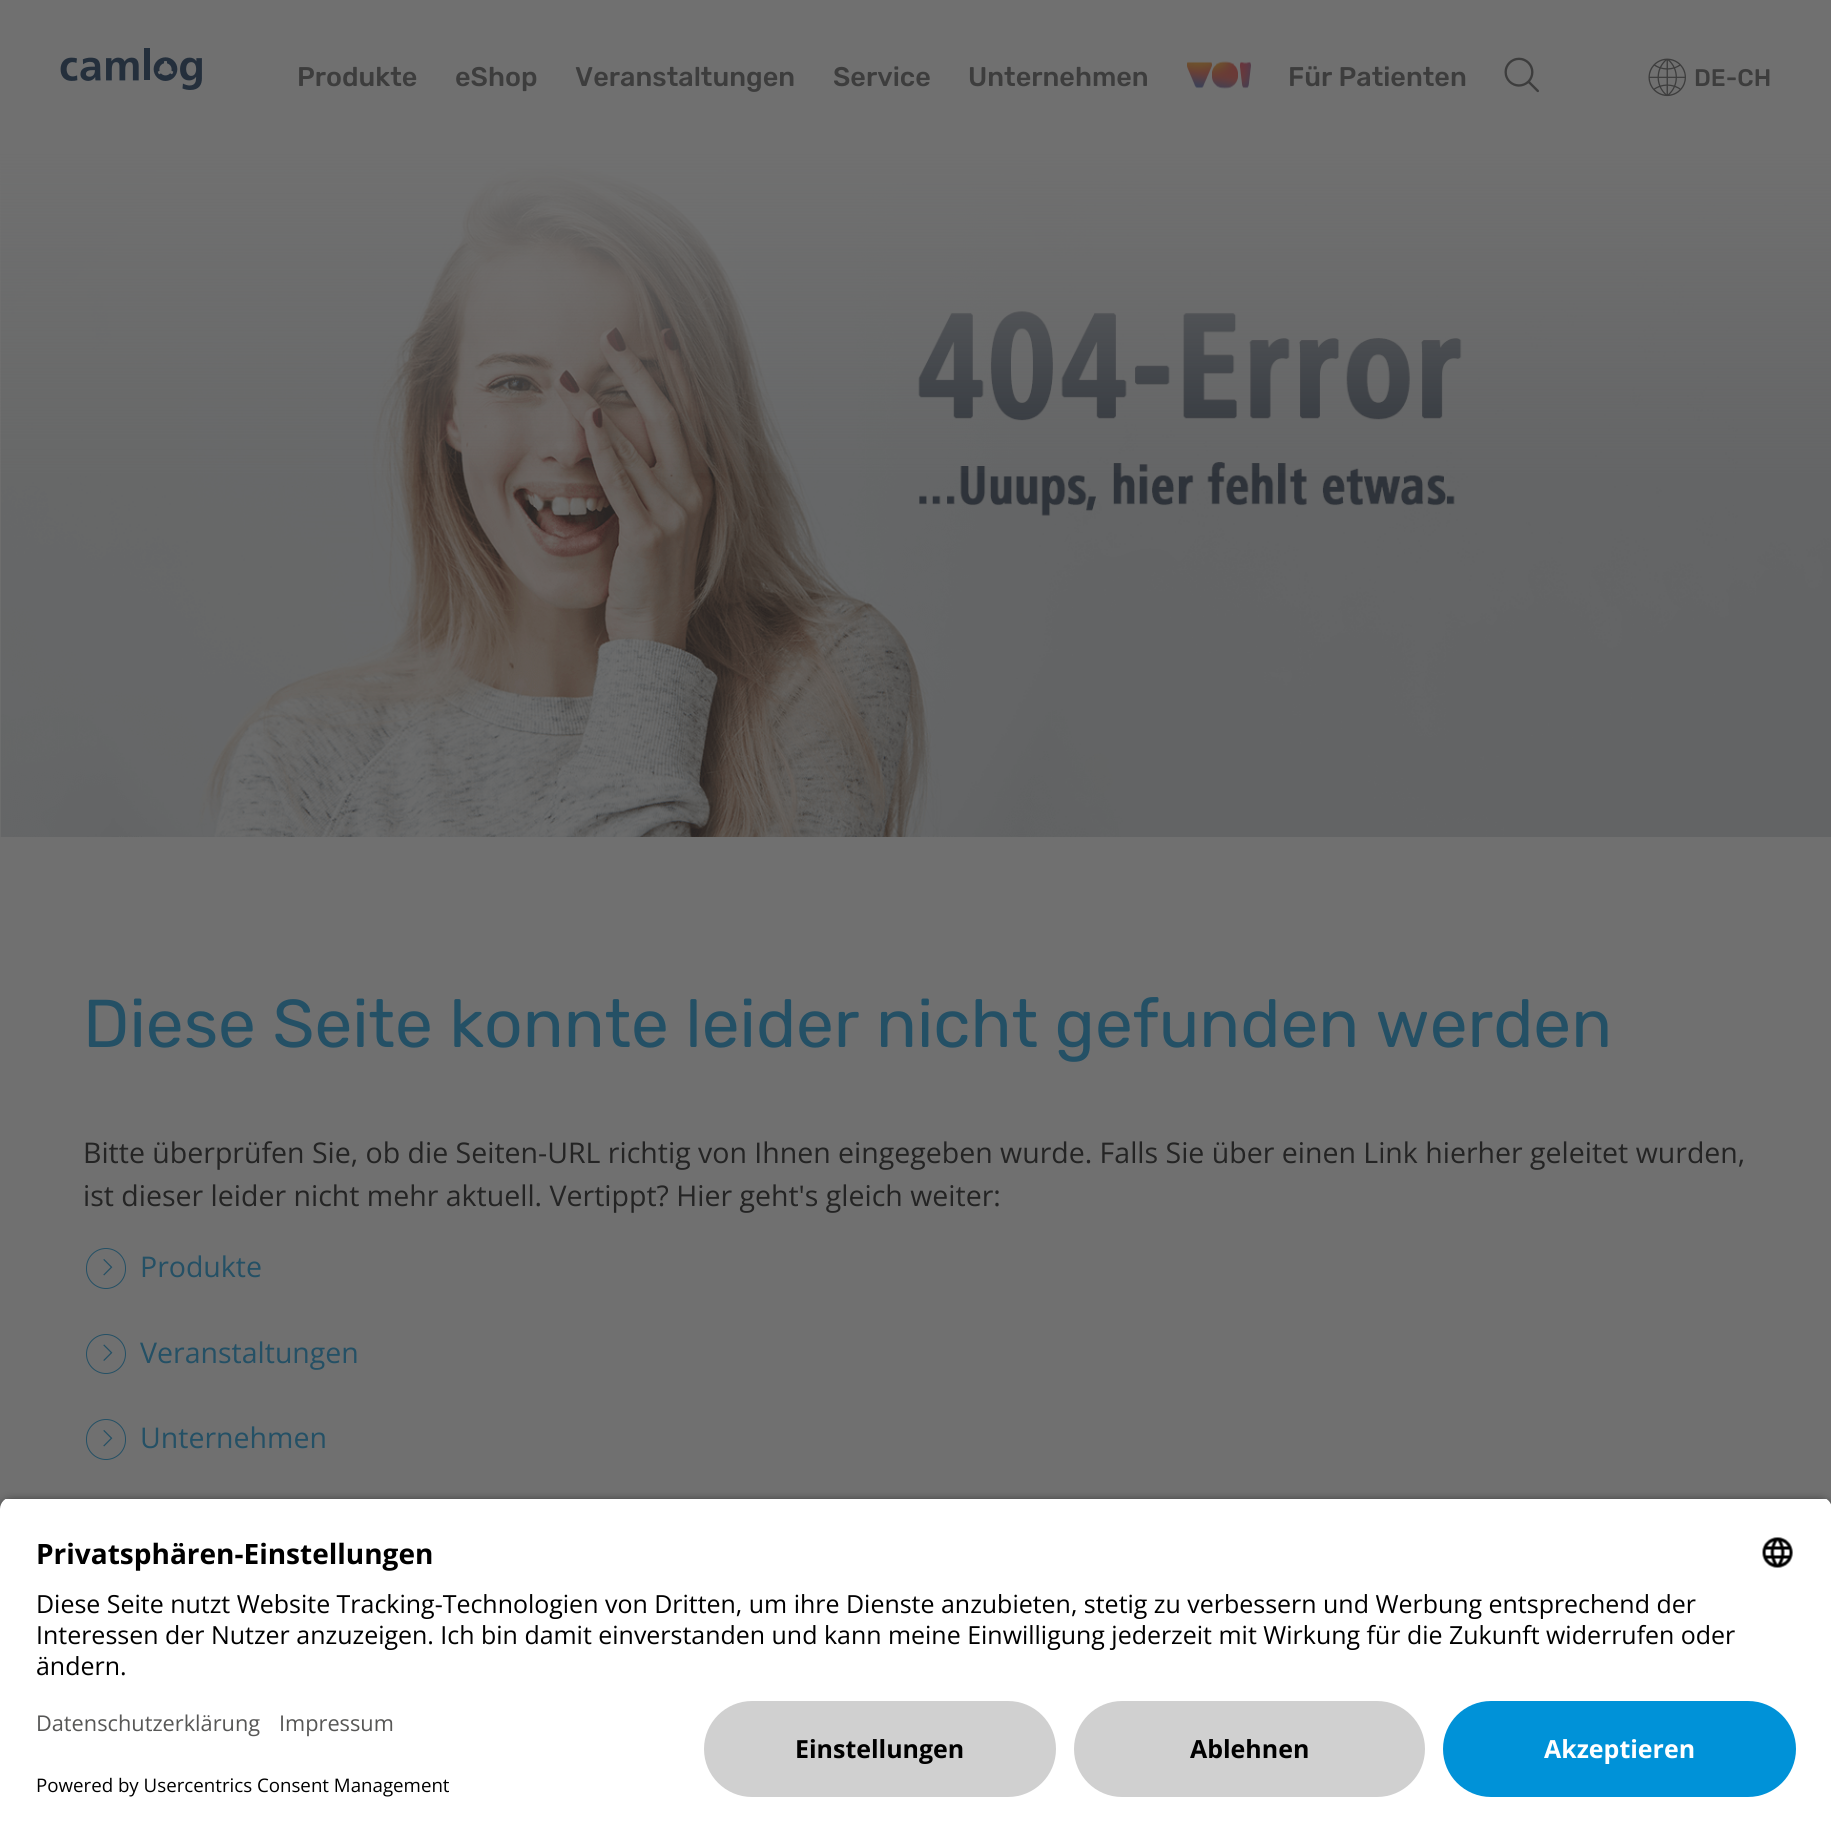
#include <cairo.h>
#include <math.h>
#include <stddef.h>


static void round_rect(cairo_t *cr, double x, double y, double w, double h, double r) {
    cairo_new_sub_path(cr);
    cairo_arc(cr, x + w - r, y + h - r, r, 0, M_PI / 2);
    cairo_arc(cr, x + r, y + h - r, r, M_PI / 2, M_PI);
    cairo_arc(cr, x + r, y + r, r, M_PI, 1.5 * M_PI);
    cairo_arc(cr, x + w - r, y + r, r, 1.5 * M_PI, 2 * M_PI);
    cairo_close_path(cr);
}

static void shadow(cairo_t *cr, double x, double y, double w, double h, double r, double blur, double alpha) {
    cairo_push_group_with_content(cr, CAIRO_CONTENT_ALPHA);
    cairo_set_operator(cr, CAIRO_OPERATOR_SOURCE);
    for (int i = 15; i >= -15 && fmin(w, h) + blur * i / 3 > 0; i -= 2) {
        double e = blur * i / 6;
        cairo_set_source_rgba(cr, 0, 0, 0, alpha * erfc((i - 1) / 8.5) / 2);
        round_rect(cr, x - e, y - e, w + 2 * e, h + 2 * e, fmax(0, fmin(r + e + blur * .6, fmin(w, h) / 2 + e)));
        cairo_fill(cr);
    }
    cairo_pattern_t *soft = cairo_pop_group(cr);
    cairo_mask(cr, soft);
    cairo_pattern_destroy(soft);
}

static void picture(cairo_t *cr, const char *path, double x, double y, double w, double h) {
    cairo_surface_t *image = cairo_image_surface_create_from_png(path);
    cairo_save(cr);
    cairo_set_source_surface(cr, image, x, y);
    cairo_rectangle(cr, x, y, w, h);
    cairo_fill(cr);
    cairo_restore(cr);
    cairo_surface_destroy(image);
}

int main(void) {
    cairo_surface_t *surface = cairo_image_surface_create(CAIRO_FORMAT_RGB24, 1831, 1833);
    cairo_t *cr = cairo_create(surface);
    cairo_font_options_t *options = cairo_font_options_create();
    cairo_font_options_set_hint_metrics(options, CAIRO_HINT_METRICS_OFF);
    cairo_font_options_set_hint_style(options, CAIRO_HINT_STYLE_NONE);
    cairo_set_font_options(cr, options);
    cairo_set_miter_limit(cr, 4);
    cairo_pattern_t *gradient;
    cairo_set_source_rgb(cr, 0.439, 0.439, 0.439);
    cairo_paint(cr);
    picture(cr, "img1.png", 60, 48, 142, 42);
    cairo_select_font_face(cr, "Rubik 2 Light", CAIRO_FONT_SLANT_NORMAL, CAIRO_FONT_WEIGHT_NORMAL);
    cairo_set_font_size(cr, 27);
    cairo_set_source_rgb(cr, 0.239, 0.239, 0.239);
    cairo_move_to(cr, 297, 86);
    cairo_show_text(cr, "Produkte");
    cairo_move_to(cr, 455, 86);
    cairo_show_text(cr, "eShop");
    cairo_move_to(cr, 575, 86);
    cairo_show_text(cr, "Veranstaltungen");
    cairo_move_to(cr, 833, 86);
    cairo_show_text(cr, "Service");
    cairo_move_to(cr, 968, 86);
    cairo_show_text(cr, "Unternehmen");
    picture(cr, "img2.png", 1187, 61, 64, 28);
    cairo_move_to(cr, 1288, 86);
    cairo_show_text(cr, "Für Patienten");
    picture(cr, "img3.png", 1504, 57, 35, 36);
    picture(cr, "img4.png", 1648, 58, 38, 39);
    cairo_set_font_size(cr, 24);
    cairo_move_to(cr, 1694, 86);
    cairo_show_text(cr, "DE-CH");
    picture(cr, "img5.png", 0, 152, 1831, 685);
    gradient = cairo_pattern_create_linear(916, 150, 916, 483);
    cairo_pattern_add_color_stop_rgba(gradient, 0, 0.439, 0.439, 0.439, 1);
    cairo_pattern_add_color_stop_rgba(gradient, 1, 0.439, 0.439, 0.439, 0);
    cairo_set_source(cr, gradient);
    cairo_pattern_destroy(gradient);
    cairo_rectangle(cr, 0, 152, 1831, 321);
    cairo_fill(cr);
    cairo_select_font_face(cr, "Rubik Light", CAIRO_FONT_SLANT_NORMAL, CAIRO_FONT_WEIGHT_NORMAL);
    cairo_set_font_size(cr, 67.5);
    cairo_set_source_rgb(cr, 0.141, 0.314, 0.396);
    cairo_move_to(cr, 83, 1047);
    cairo_show_text(cr, "Diese Seite konnte leider nicht gefunden werden");
    cairo_select_font_face(cr, "Open Sans", CAIRO_FONT_SLANT_NORMAL, CAIRO_FONT_WEIGHT_NORMAL);
    cairo_set_font_size(cr, 28.5);
    cairo_set_source_rgb(cr, 0.141, 0.141, 0.141);
    cairo_move_to(cr, 83, 1163);
    cairo_show_text(cr, "Bitte überprüfen Sie, ob die Seiten-URL richtig von Ihnen eingegeben wurde. Falls Sie über einen Link hierher geleitet wurden,");
    cairo_move_to(cr, 83, 1206);
    cairo_show_text(cr, "ist dieser leider nicht mehr aktuell. Vertippt? Hier geht's gleich weiter:");
    round_rect(cr, 86.5, 1248.5, 39, 40, 19.5);
    cairo_set_source_rgb(cr, 0.141, 0.314, 0.396);
    cairo_set_line_width(cr, 1);
    cairo_stroke(cr);
    picture(cr, "img6.png", 103, 1259, 10, 17);
    cairo_move_to(cr, 140, 1277);
    cairo_show_text(cr, "Produkte");
    cairo_new_path(cr);
    cairo_arc(cr, 106, 1354, 19.5, 0, 2 * M_PI);
    cairo_stroke(cr);
    picture(cr, "img7.png", 103, 1344, 10, 17);
    cairo_move_to(cr, 140, 1363);
    cairo_show_text(cr, "Veranstaltungen");
    round_rect(cr, 86.5, 1419.5, 39, 40, 19.5);
    cairo_stroke(cr);
    picture(cr, "img6.png", 103, 1430, 10, 17);
    cairo_move_to(cr, 140, 1448);
    cairo_show_text(cr, "Unternehmen");
    cairo_set_source_rgb(cr, 0, 0, 0);
    shadow(cr, 0, 1502, 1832, 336, 12, 5, 0.8);
    cairo_save(cr);
    cairo_new_path(cr);
    cairo_move_to(cr, 12, 1497);
    cairo_line_to(cr, 1820, 1497);
    cairo_curve_to(cr, 1826.5, 1497, 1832, 1502.5, 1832, 1509);
    cairo_line_to(cr, 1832, 1689);
    cairo_line_to(cr, 0, 1689);
    cairo_line_to(cr, 0, 1509);
    cairo_curve_to(cr, 0, 1502.5, 5.5, 1497, 12, 1497);
    cairo_close_path(cr);
    cairo_clip(cr);
    cairo_set_source_rgb(cr, 1, 1, 1);
    cairo_rectangle(cr, 0, 1499, 1831, 190);
    cairo_fill(cr);
    cairo_restore(cr);
    cairo_select_font_face(cr, "Open Sans", CAIRO_FONT_SLANT_NORMAL, CAIRO_FONT_WEIGHT_BOLD);
    cairo_set_font_size(cr, 28);
    cairo_set_source_rgb(cr, 0, 0, 0);
    cairo_move_to(cr, 36, 1564);
    cairo_show_text(cr, "Privatsphären-Einstellungen");
    picture(cr, "img8.png", 1762, 1537, 31, 31);
    cairo_select_font_face(cr, "Open Sans", CAIRO_FONT_SLANT_NORMAL, CAIRO_FONT_WEIGHT_NORMAL);
    cairo_set_font_size(cr, 24.95);
    cairo_move_to(cr, 36, 1613);
    cairo_show_text(cr, "Diese Seite nutzt Website Tracking-Technologien von Dritten, um ihre Dienste anzubieten, stetig zu verbessern und Werbung entsprechend der");
    cairo_move_to(cr, 36, 1644);
    cairo_show_text(cr, "Interessen der Nutzer anzuzeigen. Ich bin damit einverstanden und kann meine Einwilligung jederzeit mit Wirkung für die Zukunft widerrufen oder");
    cairo_move_to(cr, 36, 1675);
    cairo_show_text(cr, "ändern.");
    cairo_set_source_rgb(cr, 1, 1, 1);
    cairo_rectangle(cr, 0, 1689, 1831, 144);
    cairo_fill(cr);
    cairo_set_font_size(cr, 21.75);
    cairo_set_source_rgb(cr, 0.341, 0.341, 0.337);
    cairo_move_to(cr, 36, 1731);
    cairo_show_text(cr, "Datenschutzerklärung");
    cairo_move_to(cr, 279, 1731);
    cairo_show_text(cr, "Impressum");
    cairo_set_font_size(cr, 18.7);
    cairo_set_source_rgb(cr, 0, 0, 0);
    cairo_move_to(cr, 36, 1792);
    cairo_show_text(cr, "Powered by Usercentrics Consent Management");
    cairo_set_source_rgb(cr, 0.816, 0.816, 0.816);
    round_rect(cr, 704, 1701, 352, 96, 48);
    cairo_fill(cr);
    cairo_select_font_face(cr, "Open Sans", CAIRO_FONT_SLANT_NORMAL, CAIRO_FONT_WEIGHT_BOLD);
    cairo_set_font_size(cr, 24.95);
    cairo_set_source_rgb(cr, 0, 0, 0);
    cairo_move_to(cr, 795, 1758);
    cairo_show_text(cr, "Einstellungen");
    cairo_set_source_rgb(cr, 0.816, 0.816, 0.816);
    round_rect(cr, 1074, 1701, 351, 96, 48);
    cairo_fill(cr);
    cairo_set_source_rgb(cr, 0, 0, 0);
    cairo_move_to(cr, 1190, 1758);
    cairo_show_text(cr, "Ablehnen");
    cairo_set_source_rgb(cr, 0, 0.573, 0.847);
    round_rect(cr, 1443, 1701, 353, 96, 48);
    cairo_fill(cr);
    cairo_set_source_rgb(cr, 1, 1, 1);
    cairo_move_to(cr, 1544, 1758);
    cairo_show_text(cr, "Akzeptieren");
    cairo_surface_write_to_png(surface, "page.png");
    cairo_font_options_destroy(options);
    cairo_destroy(cr);
    cairo_surface_destroy(surface);
    return 0;
}
